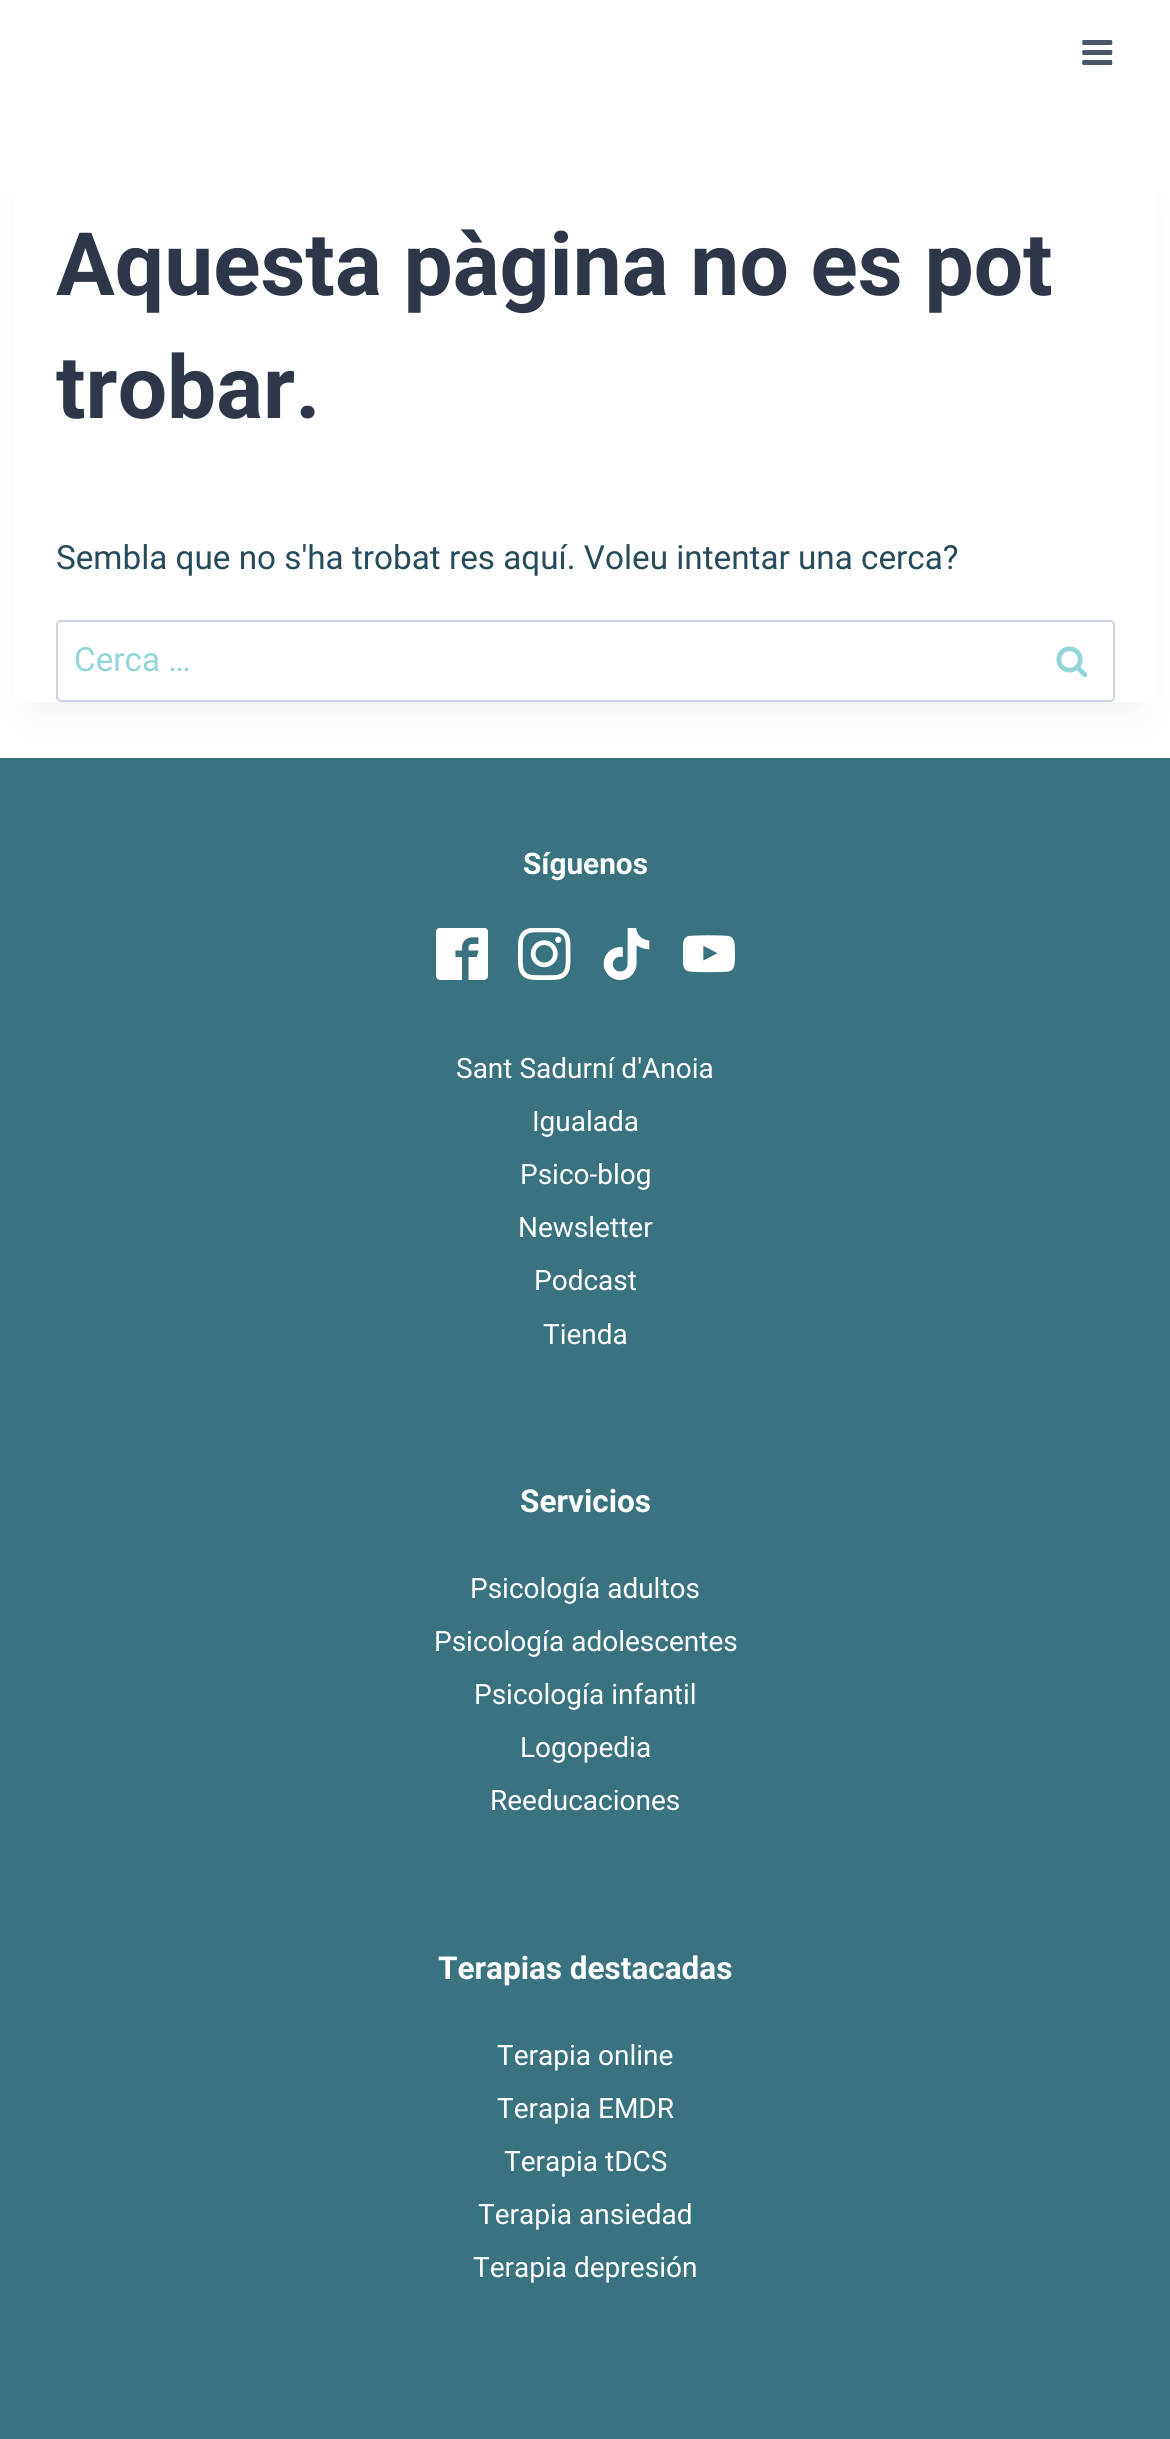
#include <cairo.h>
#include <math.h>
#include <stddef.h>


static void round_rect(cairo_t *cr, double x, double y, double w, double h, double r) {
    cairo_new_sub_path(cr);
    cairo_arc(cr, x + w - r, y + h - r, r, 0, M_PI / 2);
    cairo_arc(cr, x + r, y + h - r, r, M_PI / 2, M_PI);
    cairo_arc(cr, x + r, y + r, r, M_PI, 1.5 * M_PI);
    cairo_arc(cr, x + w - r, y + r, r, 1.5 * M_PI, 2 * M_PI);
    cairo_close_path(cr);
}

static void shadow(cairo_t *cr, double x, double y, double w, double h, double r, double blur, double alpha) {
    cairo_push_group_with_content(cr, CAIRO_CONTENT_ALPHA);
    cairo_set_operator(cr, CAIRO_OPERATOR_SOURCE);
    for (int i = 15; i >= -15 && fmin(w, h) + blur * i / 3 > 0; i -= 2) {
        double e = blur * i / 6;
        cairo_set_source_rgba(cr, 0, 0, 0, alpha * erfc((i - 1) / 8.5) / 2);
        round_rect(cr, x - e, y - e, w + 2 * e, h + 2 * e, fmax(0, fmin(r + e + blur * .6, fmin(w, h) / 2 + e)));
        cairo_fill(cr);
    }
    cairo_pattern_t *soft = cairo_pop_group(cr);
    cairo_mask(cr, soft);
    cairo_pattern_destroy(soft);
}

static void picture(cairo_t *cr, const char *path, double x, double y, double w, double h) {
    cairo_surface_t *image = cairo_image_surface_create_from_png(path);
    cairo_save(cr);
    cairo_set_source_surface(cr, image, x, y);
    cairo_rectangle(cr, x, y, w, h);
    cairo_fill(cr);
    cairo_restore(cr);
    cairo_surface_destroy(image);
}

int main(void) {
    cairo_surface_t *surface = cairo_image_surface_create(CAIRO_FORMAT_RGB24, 1170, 2439);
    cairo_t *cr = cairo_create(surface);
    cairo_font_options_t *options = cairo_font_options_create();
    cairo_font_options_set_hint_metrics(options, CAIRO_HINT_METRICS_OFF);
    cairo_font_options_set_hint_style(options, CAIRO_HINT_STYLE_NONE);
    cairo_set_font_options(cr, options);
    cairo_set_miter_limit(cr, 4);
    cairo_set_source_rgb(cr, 1, 1, 1);
    cairo_paint(cr);
    picture(cr, "img1.png", 1082, 40, 31, 25);
    cairo_set_source_rgb(cr, 0.224, 0.451, 0.502);
    cairo_rectangle(cr, 0, 758, 1170, 1681);
    cairo_fill(cr);
    cairo_set_source_rgb(cr, 0, 0, 0);
    shadow(cr, 32, 207, 1107, 504, 0, 22, 0.05);
    cairo_set_source_rgb(cr, 1, 1, 1);
    round_rect(cr, 14, 163, 1143, 539, 7);
    cairo_fill(cr);
    cairo_select_font_face(cr, "Roboto", CAIRO_FONT_SLANT_NORMAL, CAIRO_FONT_WEIGHT_BOLD);
    cairo_set_font_size(cr, 87.5);
    cairo_set_source_rgb(cr, 0.176, 0.216, 0.282);
    cairo_move_to(cr, 56, 295);
    cairo_show_text(cr, "Aquesta pàgina no es pot");
    cairo_move_to(cr, 56, 418);
    cairo_show_text(cr, "trobar.");
    cairo_select_font_face(cr, "Roboto", CAIRO_FONT_SLANT_NORMAL, CAIRO_FONT_WEIGHT_NORMAL);
    cairo_set_font_size(cr, 33.25);
    cairo_set_source_rgb(cr, 0.149, 0.294, 0.353);
    cairo_move_to(cr, 56, 569);
    cairo_show_text(cr, "Sembla que no s'ha trobat res aquí. Voleu intentar una cerca?");
    round_rect(cr, 57, 621, 1057, 80, 4);
    cairo_set_source_rgb(cr, 0.796, 0.835, 0.878);
    cairo_stroke(cr);
    cairo_set_source_rgb(cr, 0.576, 0.839, 0.847);
    cairo_move_to(cr, 74, 671);
    cairo_show_text(cr, "Cerca …");
    picture(cr, "img2.png", 1056, 646, 32, 31);
    cairo_select_font_face(cr, "Roboto", CAIRO_FONT_SLANT_NORMAL, CAIRO_FONT_WEIGHT_BOLD);
    cairo_set_font_size(cr, 29.75);
    cairo_set_source_rgb(cr, 1, 1, 1);
    cairo_move_to(cr, 523, 874);
    cairo_show_text(cr, "Síguenos");
    picture(cr, "img3.png", 436, 928, 52, 52);
    picture(cr, "img4.png", 518, 928, 53, 52);
    picture(cr, "img5.png", 603, 928, 47, 52);
    picture(cr, "img6.png", 683, 935, 52, 38);
    cairo_select_font_face(cr, "Roboto", CAIRO_FONT_SLANT_NORMAL, CAIRO_FONT_WEIGHT_NORMAL);
    cairo_set_font_size(cr, 28);
    cairo_move_to(cr, 456, 1078);
    cairo_show_text(cr, "Sant Sadurní d'Anoia");
    cairo_move_to(cr, 532, 1131);
    cairo_show_text(cr, "Igualada");
    cairo_move_to(cr, 520, 1184);
    cairo_show_text(cr, "Psico-blog");
    cairo_move_to(cr, 518, 1237);
    cairo_show_text(cr, "Newsletter");
    cairo_move_to(cr, 534, 1290);
    cairo_show_text(cr, "Podcast");
    cairo_move_to(cr, 543, 1344);
    cairo_show_text(cr, "Tienda");
    cairo_select_font_face(cr, "Roboto", CAIRO_FONT_SLANT_NORMAL, CAIRO_FONT_WEIGHT_BOLD);
    cairo_set_font_size(cr, 31.5);
    cairo_move_to(cr, 520, 1512);
    cairo_show_text(cr, "Servicios");
    cairo_select_font_face(cr, "Roboto", CAIRO_FONT_SLANT_NORMAL, CAIRO_FONT_WEIGHT_NORMAL);
    cairo_set_font_size(cr, 28);
    cairo_move_to(cr, 470, 1598);
    cairo_show_text(cr, "Psicología adultos");
    cairo_move_to(cr, 434, 1651);
    cairo_show_text(cr, "Psicología adolescentes");
    cairo_move_to(cr, 474, 1704);
    cairo_show_text(cr, "Psicología infantil");
    cairo_move_to(cr, 520, 1757);
    cairo_show_text(cr, "Logopedia");
    cairo_move_to(cr, 490, 1810);
    cairo_show_text(cr, "Reeducaciones");
    cairo_select_font_face(cr, "Roboto", CAIRO_FONT_SLANT_NORMAL, CAIRO_FONT_WEIGHT_BOLD);
    cairo_set_font_size(cr, 31.5);
    cairo_move_to(cr, 438, 1979);
    cairo_show_text(cr, "Terapias destacadas");
    cairo_select_font_face(cr, "Roboto", CAIRO_FONT_SLANT_NORMAL, CAIRO_FONT_WEIGHT_NORMAL);
    cairo_set_font_size(cr, 28);
    cairo_move_to(cr, 497, 2065);
    cairo_show_text(cr, "Terapia online");
    cairo_move_to(cr, 497, 2118);
    cairo_show_text(cr, "Terapia EMDR");
    cairo_move_to(cr, 504, 2171);
    cairo_show_text(cr, "Terapia tDCS");
    cairo_move_to(cr, 478, 2224);
    cairo_show_text(cr, "Terapia ansiedad");
    cairo_move_to(cr, 473, 2277);
    cairo_show_text(cr, "Terapia depresión");
    cairo_surface_write_to_png(surface, "page.png");
    cairo_font_options_destroy(options);
    cairo_destroy(cr);
    cairo_surface_destroy(surface);
    return 0;
}
